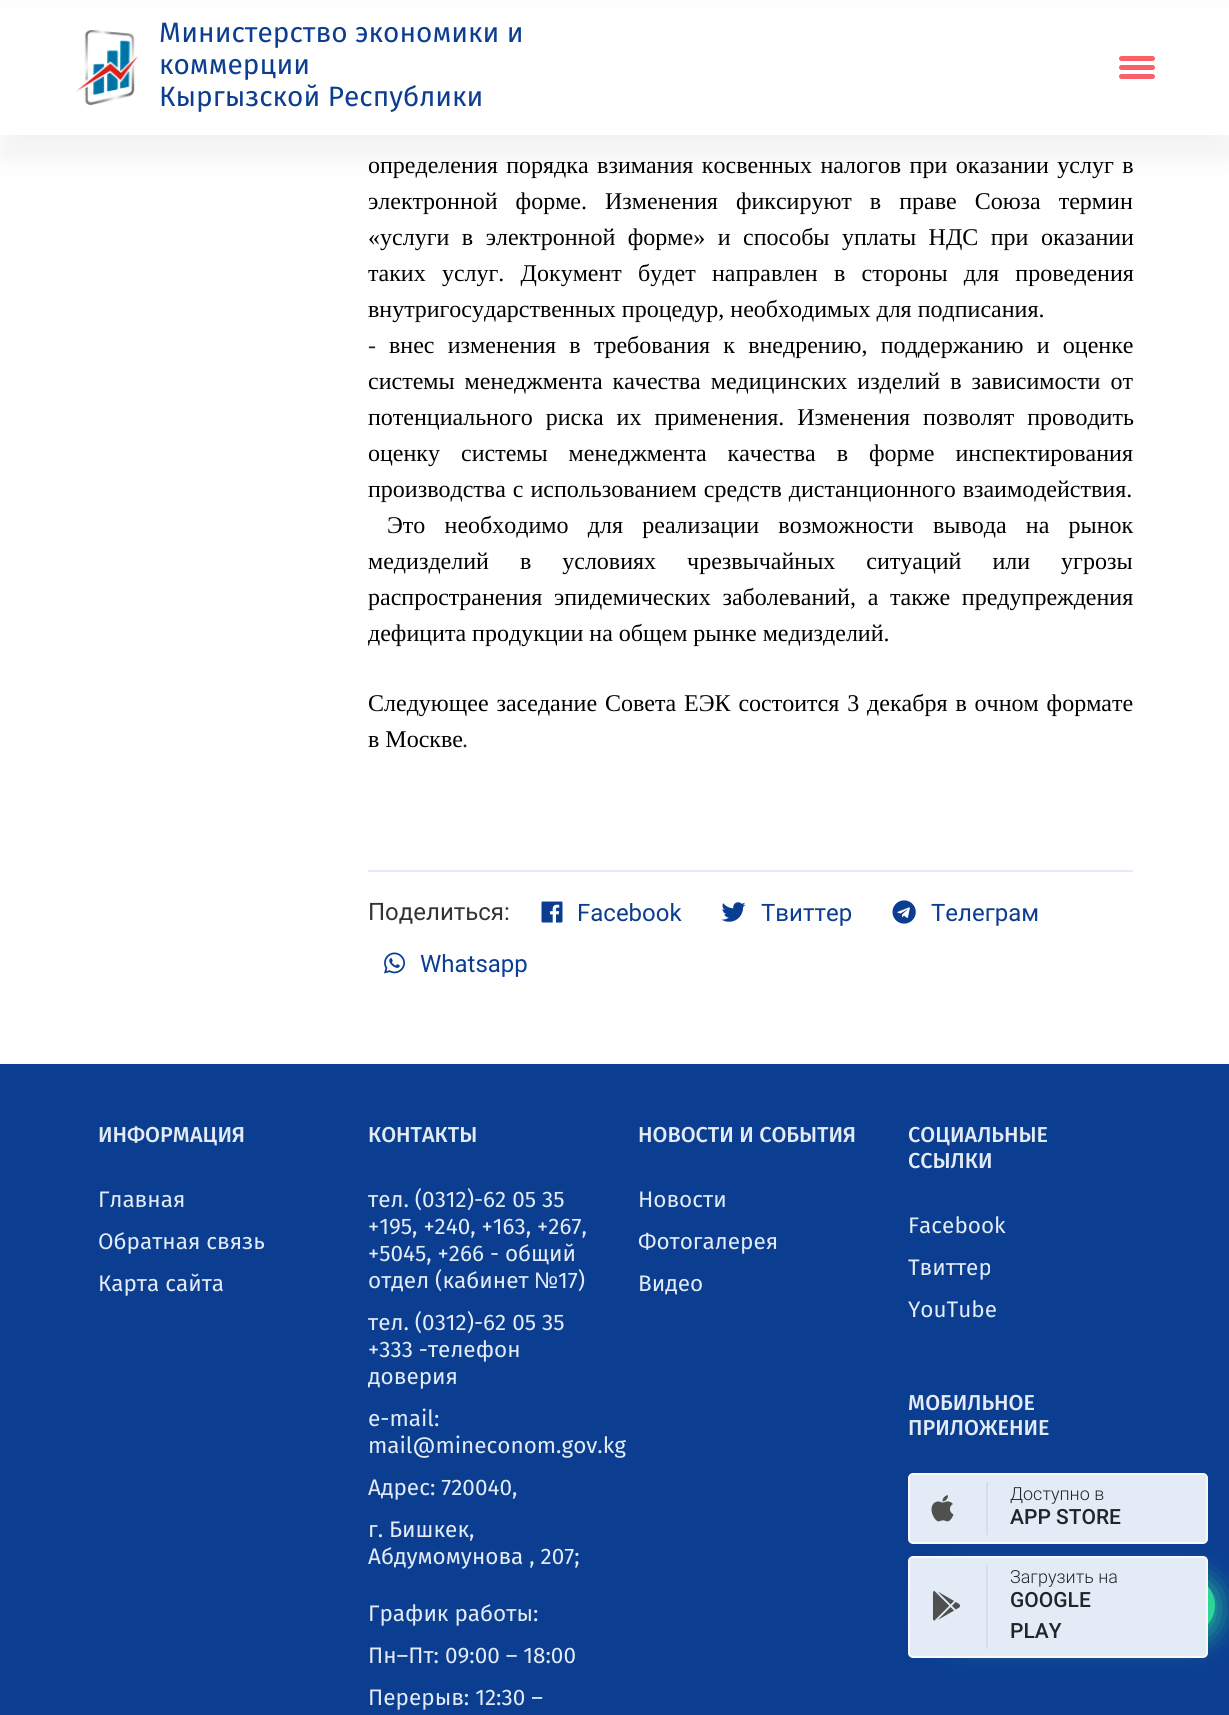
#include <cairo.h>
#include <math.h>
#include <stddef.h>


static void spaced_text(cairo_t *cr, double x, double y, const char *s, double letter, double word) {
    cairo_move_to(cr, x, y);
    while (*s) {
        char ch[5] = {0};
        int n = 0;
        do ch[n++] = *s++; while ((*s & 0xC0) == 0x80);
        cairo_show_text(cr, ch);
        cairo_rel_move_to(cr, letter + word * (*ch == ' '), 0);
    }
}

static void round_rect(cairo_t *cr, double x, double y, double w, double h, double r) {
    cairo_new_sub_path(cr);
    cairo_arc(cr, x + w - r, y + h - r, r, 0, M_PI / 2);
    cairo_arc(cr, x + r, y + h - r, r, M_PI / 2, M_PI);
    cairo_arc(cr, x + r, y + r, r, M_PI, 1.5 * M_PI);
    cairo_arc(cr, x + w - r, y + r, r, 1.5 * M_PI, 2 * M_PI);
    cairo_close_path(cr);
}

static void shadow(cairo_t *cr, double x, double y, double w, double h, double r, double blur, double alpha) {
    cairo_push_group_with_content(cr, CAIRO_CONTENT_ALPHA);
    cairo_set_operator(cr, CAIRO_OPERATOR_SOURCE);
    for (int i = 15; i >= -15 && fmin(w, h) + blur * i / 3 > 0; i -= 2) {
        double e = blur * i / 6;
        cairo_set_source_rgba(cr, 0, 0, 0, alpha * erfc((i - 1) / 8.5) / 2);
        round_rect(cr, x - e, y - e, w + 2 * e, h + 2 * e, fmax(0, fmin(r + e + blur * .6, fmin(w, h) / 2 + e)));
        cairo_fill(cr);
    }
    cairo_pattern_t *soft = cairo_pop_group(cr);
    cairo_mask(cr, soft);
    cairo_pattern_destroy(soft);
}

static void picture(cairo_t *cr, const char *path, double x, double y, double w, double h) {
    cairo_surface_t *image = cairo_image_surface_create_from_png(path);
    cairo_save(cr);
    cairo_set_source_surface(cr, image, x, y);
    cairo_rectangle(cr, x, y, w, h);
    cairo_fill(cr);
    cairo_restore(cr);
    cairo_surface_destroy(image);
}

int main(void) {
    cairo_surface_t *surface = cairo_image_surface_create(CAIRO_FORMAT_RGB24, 1229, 1715);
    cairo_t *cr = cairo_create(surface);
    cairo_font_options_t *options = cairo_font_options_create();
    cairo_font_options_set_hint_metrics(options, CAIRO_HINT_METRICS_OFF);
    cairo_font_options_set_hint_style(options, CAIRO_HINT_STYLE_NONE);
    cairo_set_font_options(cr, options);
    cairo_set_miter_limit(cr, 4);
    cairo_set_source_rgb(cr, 1, 1, 1);
    cairo_paint(cr);
    cairo_set_source_rgb(cr, 0.004, 0.004, 0.004);
    shadow(cr, -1, 21, 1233, 138, 0, 14, 0.05);
    cairo_set_source_rgb(cr, 1, 1, 1);
    cairo_rectangle(cr, 0, 9, 1229, 126);
    cairo_fill(cr);
    picture(cr, "img1.png", 76, 30, 63, 75);
    cairo_select_font_face(cr, "Fira Sans", CAIRO_FONT_SLANT_NORMAL, CAIRO_FONT_WEIGHT_NORMAL);
    cairo_set_font_size(cr, 28);
    cairo_set_source_rgb(cr, 0.043, 0.239, 0.569);
    cairo_move_to(cr, 159, 42);
    cairo_show_text(cr, "Министерство экономики и");
    cairo_move_to(cr, 159, 74);
    cairo_show_text(cr, "коммерции");
    cairo_move_to(cr, 159, 106);
    cairo_show_text(cr, "Кыргызской Республики");
    cairo_set_source_rgb(cr, 0.984, 0.373, 0.408);
    round_rect(cr, 1119, 56, 36, 5, 2.5);
    cairo_fill(cr);
    round_rect(cr, 1119, 65, 36, 5, 2.5);
    cairo_fill(cr);
    round_rect(cr, 1119, 74, 36, 5, 2.5);
    cairo_fill(cr);
    cairo_select_font_face(cr, "Liberation Serif", CAIRO_FONT_SLANT_NORMAL, CAIRO_FONT_WEIGHT_NORMAL);
    cairo_set_font_size(cr, 24);
    cairo_set_source_rgb(cr, 0, 0, 0);
    spaced_text(cr, 368, 173, "определения порядка взимания косвенных налогов при оказании услуг в", 0, 2.5);
    spaced_text(cr, 368, 209, "электронной форме. Изменения фиксируют в праве Союза термин", 0, 12);
    spaced_text(cr, 368, 245, "«услуги в электронной форме» и способы уплаты НДС при оказании", 0, 6.5);
    spaced_text(cr, 368, 281, "таких услуг. Документ будет направлен в стороны для проведения", 0, 10.25);
    cairo_move_to(cr, 368, 317);
    cairo_show_text(cr, "внутригосударственных процедур, необходимых для подписания.");
    cairo_set_source_rgb(cr, 0.078, 0.149, 0.259);
    cairo_move_to(cr, 368, 353);
    cairo_show_text(cr, "-");
    cairo_set_source_rgb(cr, 0, 0, 0);
    spaced_text(cr, 389, 353, "внес изменения в требования к внедрению, поддержанию и оценке", 0, 7.25);
    spaced_text(cr, 368, 389, "системы менеджмента качества медицинских изделий в зависимости от", 0, 4);
    spaced_text(cr, 368, 425, "потенциального риска их применения. Изменения позволят проводить", 0, 7);
    spaced_text(cr, 368, 461, "оценку системы менеджмента качества в форме инспектирования", 0, 15);
    spaced_text(cr, 368, 497, "производства с использованием средств дистанционного взаимодействия.", 0, 1);
    spaced_text(cr, 387, 533, "Это необходимо для реализации возможности вывода на рынок", 0, 13.25);
    spaced_text(cr, 368, 569, "медизделий в условиях чрезвычайных ситуаций или угрозы", 0, 25);
    spaced_text(cr, 368, 605, "распространения эпидемических заболеваний, а также предупреждения", 0, 5.75);
    cairo_move_to(cr, 368, 641);
    cairo_show_text(cr, "дефицита продукции на общем рынке медизделий.");
    spaced_text(cr, 368, 711, "Следующее заседание Совета ЕЭК состоится 3 декабря в очном формате", 0, 1.9);
    cairo_move_to(cr, 368, 747);
    cairo_show_text(cr, "в Москве");
    cairo_set_source_rgb(cr, 0.078, 0.149, 0.259);
    cairo_move_to(cr, 462, 747);
    cairo_show_text(cr, ".");
    cairo_set_source_rgb(cr, 0.89, 0.925, 0.961);
    cairo_rectangle(cr, 368, 870, 765, 2);
    cairo_fill(cr);
    cairo_select_font_face(cr, "Roboto", CAIRO_FONT_SLANT_NORMAL, CAIRO_FONT_WEIGHT_NORMAL);
    cairo_set_source_rgb(cr, 0.2, 0.2, 0.2);
    cairo_move_to(cr, 368, 920);
    cairo_show_text(cr, "Поделиться:");
    picture(cr, "img2.png", 541, 901, 22, 22);
    cairo_set_source_rgb(cr, 0.043, 0.239, 0.569);
    cairo_move_to(cr, 577, 921);
    cairo_show_text(cr, "Facebook");
    picture(cr, "img3.png", 721, 902, 25, 20);
    cairo_move_to(cr, 761, 921);
    cairo_show_text(cr, "Твиттер");
    picture(cr, "img4.png", 892, 900, 24, 24);
    cairo_move_to(cr, 931, 921);
    cairo_show_text(cr, "Телеграм");
    picture(cr, "img5.png", 384, 952, 21, 22);
    cairo_move_to(cr, 420, 972);
    cairo_show_text(cr, "Whatsapp");
    cairo_rectangle(cr, 0, 1064, 1229, 651);
    cairo_fill(cr);
    cairo_select_font_face(cr, "Fira Sans Medium", CAIRO_FONT_SLANT_NORMAL, CAIRO_FONT_WEIGHT_NORMAL);
    cairo_set_font_size(cr, 21.6);
    cairo_set_source_rgb(cr, 0.89, 0.925, 0.961);
    cairo_move_to(cr, 98, 1142);
    cairo_show_text(cr, "ИНФОРМАЦИЯ");
    cairo_select_font_face(cr, "Fira Sans", CAIRO_FONT_SLANT_NORMAL, CAIRO_FONT_WEIGHT_NORMAL);
    cairo_set_font_size(cr, 22.5);
    cairo_move_to(cr, 98, 1207);
    cairo_show_text(cr, "Главная");
    cairo_move_to(cr, 98, 1249);
    cairo_show_text(cr, "Обратная связь");
    cairo_move_to(cr, 98, 1291);
    cairo_show_text(cr, "Карта сайта");
    cairo_select_font_face(cr, "Fira Sans Medium", CAIRO_FONT_SLANT_NORMAL, CAIRO_FONT_WEIGHT_NORMAL);
    cairo_set_font_size(cr, 21.6);
    cairo_move_to(cr, 368, 1142);
    cairo_show_text(cr, "КОНТАКТЫ");
    cairo_select_font_face(cr, "Fira Sans", CAIRO_FONT_SLANT_NORMAL, CAIRO_FONT_WEIGHT_NORMAL);
    cairo_set_font_size(cr, 22.5);
    cairo_move_to(cr, 368, 1207);
    cairo_show_text(cr, "тел. (0312)-62 05 35");
    cairo_move_to(cr, 368, 1234);
    cairo_show_text(cr, "+195, +240, +163, +267,");
    cairo_move_to(cr, 368, 1261);
    cairo_show_text(cr, "+5045, +266 - общий");
    cairo_move_to(cr, 368, 1288);
    cairo_show_text(cr, "отдел (кабинет");
    cairo_select_font_face(cr, "Liberation Sans", CAIRO_FONT_SLANT_NORMAL, CAIRO_FONT_WEIGHT_NORMAL);
    cairo_move_to(cr, 534, 1288);
    cairo_show_text(cr, "№");
    cairo_select_font_face(cr, "Fira Sans", CAIRO_FONT_SLANT_NORMAL, CAIRO_FONT_WEIGHT_NORMAL);
    cairo_move_to(cr, 558, 1288);
    cairo_show_text(cr, "17)");
    cairo_move_to(cr, 368, 1330);
    cairo_show_text(cr, "тел. (0312)-62 05 35");
    cairo_move_to(cr, 368, 1357);
    cairo_show_text(cr, "+333 -телефон");
    cairo_move_to(cr, 368, 1384);
    cairo_show_text(cr, "доверия");
    cairo_move_to(cr, 368, 1426);
    cairo_show_text(cr, "e-mail:");
    cairo_move_to(cr, 368, 1453);
    cairo_show_text(cr, "mail@mineconom.gov.kg");
    cairo_move_to(cr, 368, 1495);
    cairo_show_text(cr, "Адрес: 720040,");
    cairo_move_to(cr, 368, 1537);
    cairo_show_text(cr, "г. Бишкек,");
    cairo_move_to(cr, 368, 1564);
    cairo_show_text(cr, "Абдумомунова , 207;");
    cairo_move_to(cr, 368, 1621);
    cairo_show_text(cr, "График работы:");
    cairo_move_to(cr, 368, 1663);
    cairo_show_text(cr, "Пн–Пт: 09:00 – 18:00");
    cairo_move_to(cr, 368, 1705);
    cairo_show_text(cr, "Перерыв: 12:30 –");
    cairo_select_font_face(cr, "Fira Sans Medium", CAIRO_FONT_SLANT_NORMAL, CAIRO_FONT_WEIGHT_NORMAL);
    cairo_set_font_size(cr, 21.6);
    cairo_move_to(cr, 638, 1142);
    cairo_show_text(cr, "НОВОСТИ И СОБЫТИЯ");
    cairo_select_font_face(cr, "Fira Sans", CAIRO_FONT_SLANT_NORMAL, CAIRO_FONT_WEIGHT_NORMAL);
    cairo_set_font_size(cr, 22.5);
    cairo_move_to(cr, 638, 1207);
    cairo_show_text(cr, "Новости");
    cairo_move_to(cr, 638, 1249);
    cairo_show_text(cr, "Фотогалерея");
    cairo_move_to(cr, 638, 1291);
    cairo_show_text(cr, "Видео");
    cairo_select_font_face(cr, "Fira Sans Medium", CAIRO_FONT_SLANT_NORMAL, CAIRO_FONT_WEIGHT_NORMAL);
    cairo_set_font_size(cr, 21.6);
    cairo_move_to(cr, 908, 1142);
    cairo_show_text(cr, "СОЦИАЛЬНЫЕ");
    cairo_move_to(cr, 908, 1168);
    cairo_show_text(cr, "ССЫЛКИ");
    cairo_select_font_face(cr, "Fira Sans", CAIRO_FONT_SLANT_NORMAL, CAIRO_FONT_WEIGHT_NORMAL);
    cairo_set_font_size(cr, 22.5);
    cairo_move_to(cr, 908, 1233);
    cairo_show_text(cr, "Facebook");
    cairo_move_to(cr, 908, 1275);
    cairo_show_text(cr, "Твиттер");
    cairo_move_to(cr, 908, 1317);
    cairo_show_text(cr, "YouTube");
    cairo_select_font_face(cr, "Fira Sans Medium", CAIRO_FONT_SLANT_NORMAL, CAIRO_FONT_WEIGHT_NORMAL);
    cairo_set_font_size(cr, 21.6);
    cairo_move_to(cr, 908, 1410);
    cairo_show_text(cr, "МОБИЛЬНОЕ");
    cairo_move_to(cr, 908, 1435);
    cairo_show_text(cr, "ПРИЛОЖЕНИЕ");
    cairo_set_source_rgb(cr, 0.173, 0.839, 0.588);
    shadow(cr, 941, 1580, 274, 57, 28.5, 15, 1);
    cairo_set_source_rgb(cr, 0.89, 0.925, 0.961);
    round_rect(cr, 909, 1474, 298, 69, 4);
    cairo_fill_preserve(cr);
    cairo_set_source_rgb(cr, 0.973, 0.976, 0.98);
    cairo_stroke(cr);
    picture(cr, "img6.png", 931, 1495, 23, 27);
    cairo_set_source_rgb(cr, 0.839, 0.875, 0.91);
    cairo_rectangle(cr, 986, 1482, 2, 53);
    cairo_fill(cr);
    cairo_select_font_face(cr, "Roboto Light", CAIRO_FONT_SLANT_NORMAL, CAIRO_FONT_WEIGHT_NORMAL);
    cairo_set_font_size(cr, 18);
    cairo_set_source_rgb(cr, 0.129, 0.145, 0.161);
    cairo_move_to(cr, 1010, 1500);
    cairo_show_text(cr, "Доступно в");
    cairo_select_font_face(cr, "Roboto Medium", CAIRO_FONT_SLANT_NORMAL, CAIRO_FONT_WEIGHT_NORMAL);
    cairo_set_font_size(cr, 21);
    cairo_move_to(cr, 1010, 1524);
    cairo_show_text(cr, "APP STORE");
    cairo_set_source_rgb(cr, 0.173, 0.839, 0.588);
    round_rect(cr, 941, 1577, 274, 57, 28.5);
    cairo_fill(cr);
    cairo_set_source_rgb(cr, 0.89, 0.925, 0.961);
    round_rect(cr, 909, 1557, 298, 100, 4);
    cairo_fill_preserve(cr);
    cairo_set_source_rgb(cr, 0.973, 0.976, 0.98);
    cairo_stroke(cr);
    picture(cr, "img7.png", 932, 1590, 28, 31);
    cairo_set_source_rgb(cr, 0.839, 0.875, 0.91);
    cairo_rectangle(cr, 986, 1565, 2, 84);
    cairo_fill(cr);
    cairo_select_font_face(cr, "Roboto Light", CAIRO_FONT_SLANT_NORMAL, CAIRO_FONT_WEIGHT_NORMAL);
    cairo_set_font_size(cr, 18);
    cairo_set_source_rgb(cr, 0.129, 0.145, 0.161);
    cairo_move_to(cr, 1010, 1583);
    cairo_show_text(cr, "Загрузить на");
    cairo_select_font_face(cr, "Roboto Medium", CAIRO_FONT_SLANT_NORMAL, CAIRO_FONT_WEIGHT_NORMAL);
    cairo_set_font_size(cr, 21);
    cairo_move_to(cr, 1010, 1607);
    cairo_show_text(cr, "GOOGLE");
    cairo_move_to(cr, 1010, 1638);
    cairo_show_text(cr, "PLAY");
    cairo_surface_write_to_png(surface, "page.png");
    cairo_font_options_destroy(options);
    cairo_destroy(cr);
    cairo_surface_destroy(surface);
    return 0;
}
